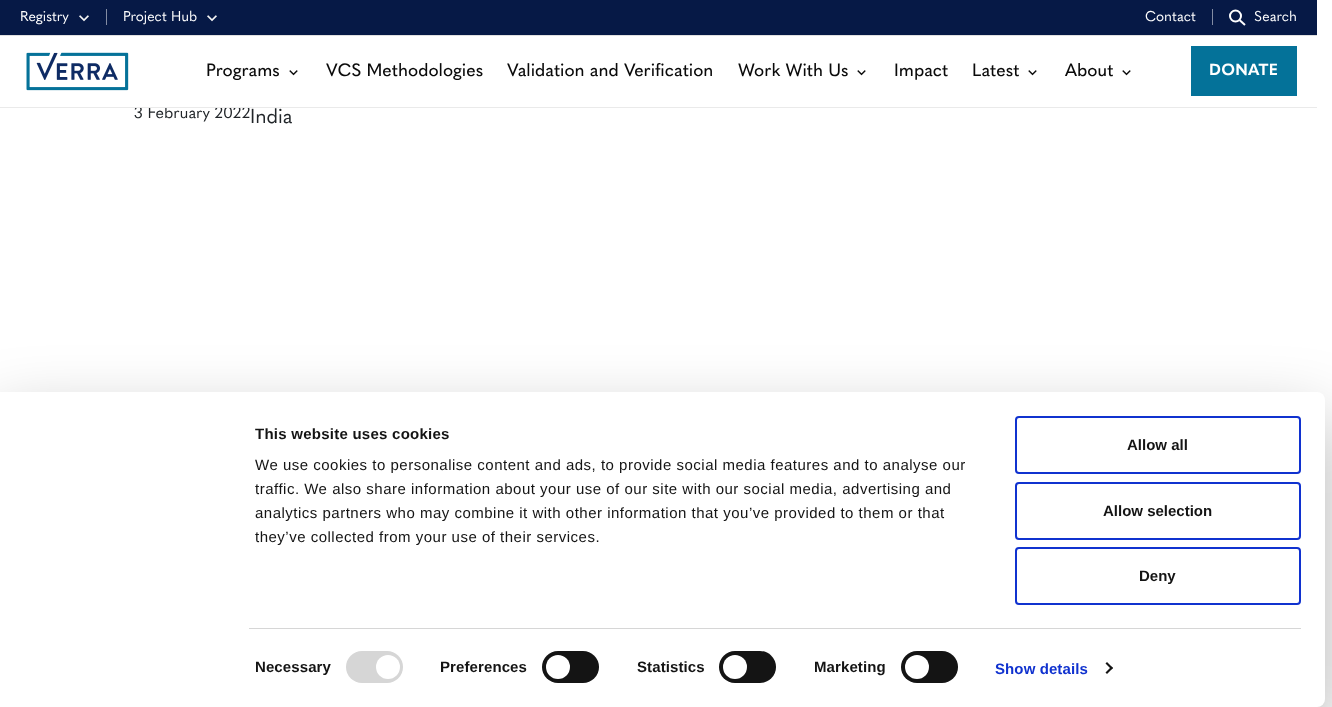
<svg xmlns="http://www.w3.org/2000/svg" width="1332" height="707">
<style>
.a{font:14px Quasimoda;fill:#fff}
.b{font:500 17.6px Quasimoda;fill:#0a0a0a}
.c{font:bold 16px Quasimoda;letter-spacing:0.25px;fill:#fff}
.d{font:16px Quasimoda;fill:#212529}
.e{font:20px Quasimoda;fill:#212529}
.f{font:bold 15px Liberation Sans;letter-spacing:0.25px;fill:#141414}
.g{font:15px Liberation Sans;letter-spacing:0.5px;fill:#141414}
.h{font:bold 15px Liberation Sans;letter-spacing:0.1px;fill:#141414}
.i{font:bold 15px Liberation Sans;letter-spacing:0.1px;fill:#1032cf}
.j{font:bold 15px Liberation Sans;fill:#141414}
</style>
<defs>
<clipPath id="clip1"><path d="M255 422h731v177H255z"/></clipPath>
</defs>
<rect width="100%" height="100%" fill="#fff"/>
<path fill="#061946" d="M0 0h1317v35H0z"/>
<path fill="#e0e0e0" d="M0 35h1317v1H0z"/>
<image href="1.png" x="79" y="15" width="10" height="7"/>
<path fill="#838ca3" d="M106 9h1v16H106z"/>
<image href="1.png" x="207" y="15" width="10" height="7"/>
<path fill="#838ca3" d="M1212 9h1v16H1212z"/>
<circle fill="none" stroke="#fff" stroke-width="2" cx="1235.5" cy="16" r="5.5"/>
<path fill="none" stroke="#fff" stroke-width="2" d="M1239.5 20l5.5 5"/>
<image href="2.png" x="26" y="52" width="103" height="39"/>
<image href="3.png" x="289" y="70" width="9" height="6"/>
<image href="3.png" x="857" y="70" width="9" height="6"/>
<image href="3.png" x="1028" y="70" width="9" height="6"/>
<image href="3.png" x="1122" y="70" width="9" height="6"/>
<path fill="#047299" d="M1191 46h106v50H1191z"/>
<rect fill="#0000004d" filter="blur(35px)" x="-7" y="422" width="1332" height="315" rx="8"/>
<rect fill="#fff" x="-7" y="392" width="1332" height="315" rx="8"/>
<path fill="#d6d6d6" d="M249 628h1052v1H249z"/>
<rect fill="#d6d6d6" x="346" y="651" width="57" height="32" rx="16"/>
<circle fill="#fff" cx="388" cy="667" r="12"/>
<rect fill="#141414" x="542" y="651" width="57" height="32" rx="16"/>
<circle fill="#fff" cx="558" cy="667" r="12"/>
<rect fill="#141414" x="719" y="651" width="57" height="32" rx="16"/>
<circle fill="#fff" cx="735" cy="667" r="12"/>
<rect fill="#141414" x="901" y="651" width="57" height="32" rx="16"/>
<circle fill="#fff" cx="917" cy="667" r="12"/>
<path fill="#141414" d="M1107 662l6 6l-1.5 1.5l-6-6z"/>
<path fill="#141414" d="M1111.5 666.5l1.5 1.5l-6 6l-1.5-1.5z"/>
<rect fill="none" stroke="#1032cf" stroke-width="2" x="1016" y="417" width="284" height="56" rx="3"/>
<rect fill="none" stroke="#1032cf" stroke-width="2" x="1016" y="483" width="284" height="56" rx="3"/>
<rect fill="none" stroke="#1032cf" stroke-width="2" x="1016" y="548" width="284" height="56" rx="3"/>
<text class="a" x="20" y="21">Registry</text>
<text class="a" x="123" y="21">Project Hub</text>
<text class="a" x="1145" y="21">Contact</text>
<text class="a" x="1254" y="21">Search</text>
<text class="b" x="206" y="76">Programs</text>
<text class="b" x="326" y="76">VCS Methodologies</text>
<text class="b" x="507" y="76">Validation and Verification</text>
<text class="b" x="738" y="76">Work With Us</text>
<text class="b" x="894" y="76">Impact</text>
<text class="b" x="972" y="76">Latest</text>
<text class="b" x="1065" y="76">About</text>
<text class="c" x="1209" y="75">DONATE</text>
<text class="d" x="134" y="118">3 February 2022</text>
<path fill="#eaeaea" d="M0 107h1317v1H0z"/>
<path fill="#fff" d="M136 106h112v1H136z"/>
<text class="e" x="250" y="123">India</text>
<g clip-path="url(#clip1)">
<text class="f" x="255" y="439">This website uses cookies</text>
</g>
<text class="g" x="255" y="470">We use cookies to personalise content and ads, to provide social media features and to analyse our</text>
<text class="g" x="255" y="494">traffic. We also share information about your use of our site with our social media, advertising and</text>
<text class="g" x="255" y="518">analytics partners who may combine it with other information that you’ve provided to them or that</text>
<text class="g" x="255" y="542">they’ve collected from your use of their services.</text>
<text class="h" x="255" y="672">Necessary</text>
<text class="h" x="440" y="672">Preferences</text>
<text class="h" x="637" y="672">Statistics</text>
<text class="h" x="814" y="672">Marketing</text>
<text class="i" x="995" y="674">Show details</text>
<text class="j" x="1127" y="450">Allow all</text>
<text class="j" x="1103" y="516">Allow selection</text>
<text class="j" x="1139" y="581">Deny</text>
</svg>
